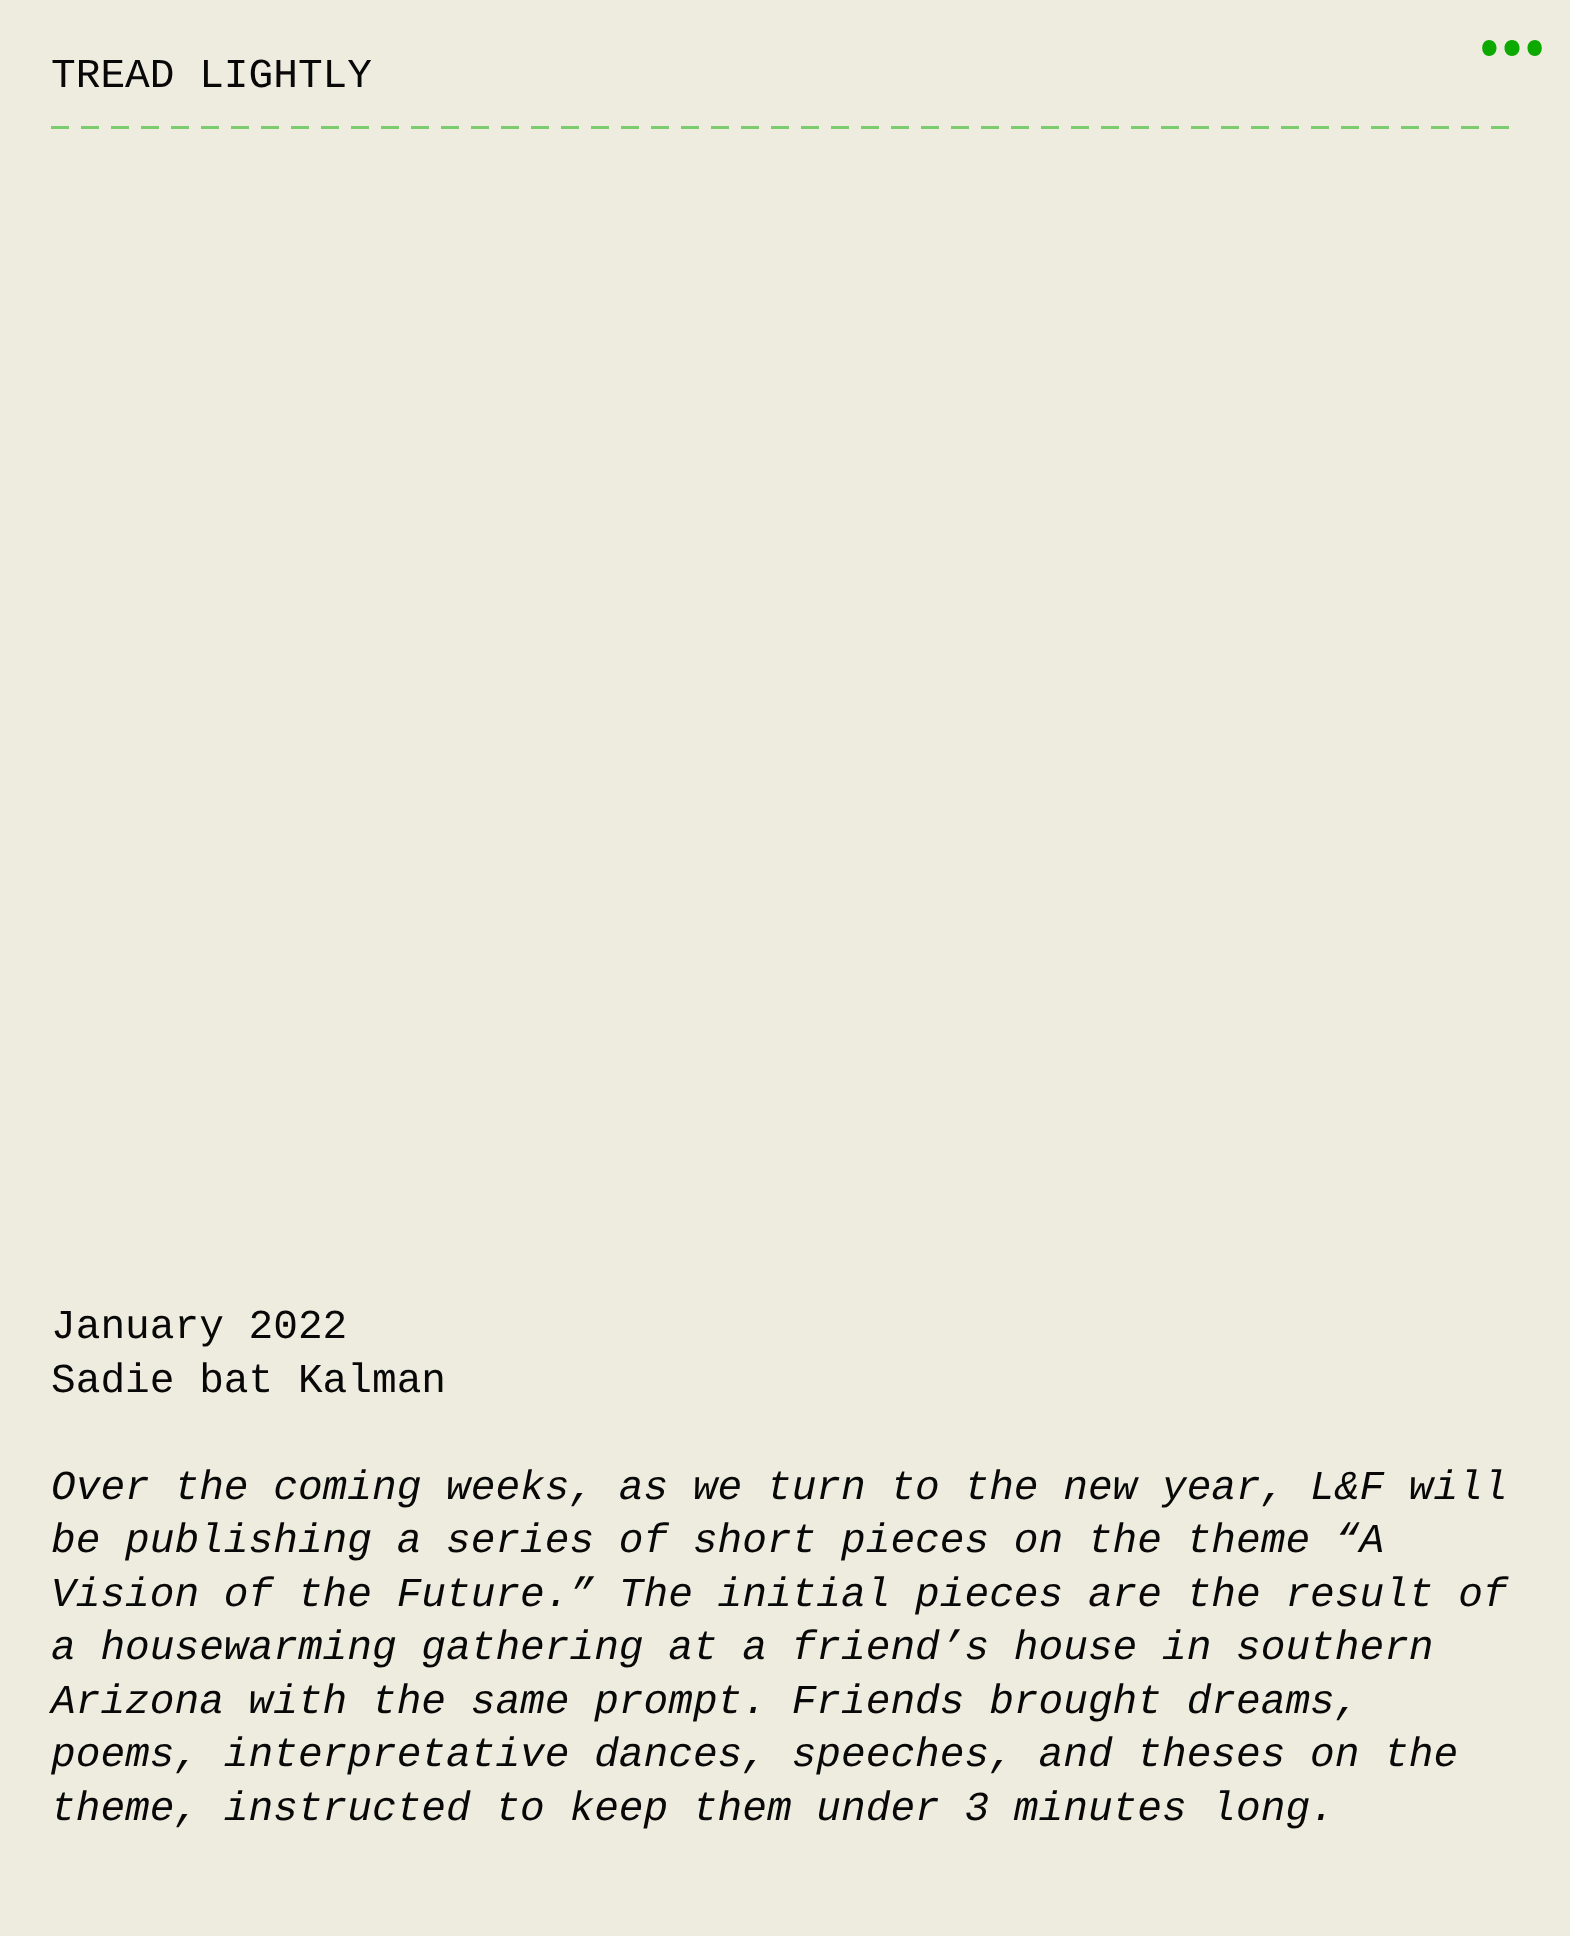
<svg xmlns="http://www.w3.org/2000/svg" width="1570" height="1936">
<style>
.a{font:41.15px Liberation Mono;fill:#080808}
.b{font:italic 41.15px Liberation Mono;fill:#080808}
</style>
<rect width="100%" height="100%" fill="#edecdf"/>
<path fill="#0ca900" d="M1489 56c10 0 10-16 0-16c-9 0-9 16 0 16zm23 0c10 0 10-16 0-16c-10 0-10 16 0 16zm23 0c9 0 9-16 0-16c-10 0-10 16 0 16z"/>
<image href="1.png" x="51" y="126" width="1458" height="3"/>
<text class="a" x="51" y="87">TREAD LIGHTLY</text>
<text class="a" x="51" y="1338">January 2022</text>
<text class="a" x="51" y="1392">Sadie bat Kalman</text>
<text class="b" x="51" y="1499">Over the coming weeks, as we turn to the new year, L&amp;F will</text>
<text class="b" x="51" y="1552">be publishing a series of short pieces on the theme “A</text>
<text class="b" x="51" y="1606">Vision of the Future.” The initial pieces are the result of</text>
<text class="b" x="51" y="1659">a housewarming gathering at a friend’s house in southern</text>
<text class="b" x="51" y="1713">Arizona with the same prompt. Friends brought dreams,</text>
<text class="b" x="51" y="1766">poems, interpretative dances, speeches, and theses on the</text>
<text class="b" x="51" y="1820">theme, instructed to keep them under 3 minutes long.</text>
</svg>
